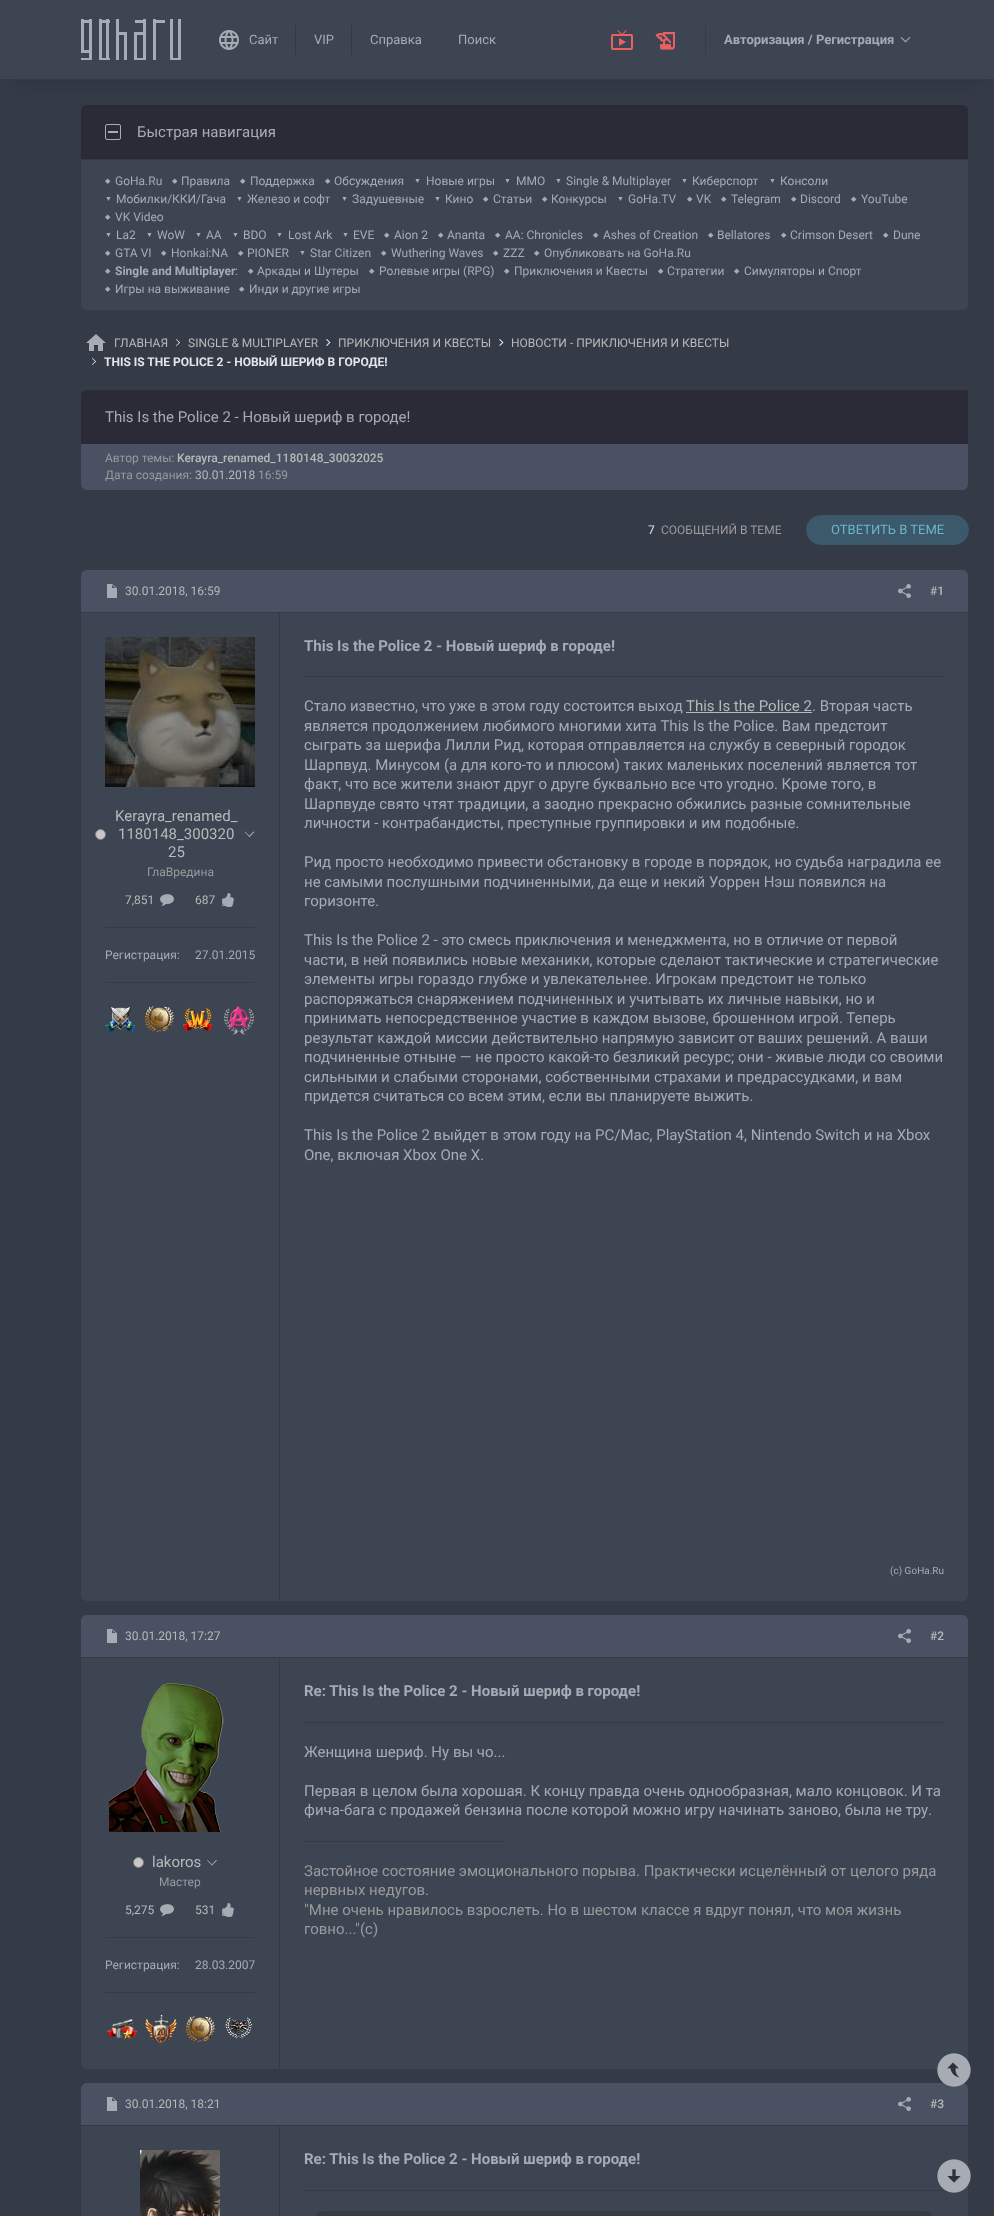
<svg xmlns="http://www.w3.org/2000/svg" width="994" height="2216">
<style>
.a{font:13px Roboto;fill:#a7abb4}
.b{font:bold 13px Roboto;fill:#a7abb4}
.c{font:15px Roboto;fill:#a7abb4}
.d{font:7px DejaVu Sans;fill:#a7abb4}
.e{font:12px Roboto;fill:#a7abb4}
.f{font:7px Liberation Sans;fill:#a7abb4}
.g{font:bold 12px Roboto;fill:#a7abb4}
.h{font:12px Roboto;fill:#b9b9b9}
.i{font:bold 12px Roboto;fill:#e5e6ea}
.j{font:12px Roboto;fill:#9b9a9d}
.k{font:500 12px Roboto;fill:#b9b9b9}
.l{font:12px Roboto;fill:#e5e6ea}
.m{font:13px Roboto;fill:#6bb6c7}
.n{font:15px Roboto;fill:#b9b9b9}
.o{font:bold 15px Roboto;fill:#a7abb4}
.p{font:10px Roboto;fill:#a7abb4}
.q{font:15px Roboto;fill:#9b9a9d}
</style>
<rect width="100%" height="100%" fill="#343a46"/>
<path fill="#00000026" filter="blur(7.5px)" d="M15 30h964v50H15z"/>
<path fill="#3d4552" d="M0 0h994v79H0z"/>
<path fill="#333b46" d="M12 79h970v1H12z"/>
<image href="1.png" x="81" y="19" width="100" height="41"/>
<image href="2.png" x="219" y="30" width="20" height="20"/>
<path fill="#333b46" d="M295 25h1v30H295z"/>
<path fill="#333b46" d="M351 25h1v30H351z"/>
<image href="3.png" x="611" y="30" width="22" height="20"/>
<image href="4.png" x="655" y="32" width="20" height="18"/>
<path fill="#333b46" d="M705 25h1v30H705z"/>
<path fill="#a7abb4" d="M909.5 37l1 .5l-5 5l-.5-1z"/>
<path fill="#a7abb4" d="M901.5 37l4.5 4.5l-.5 1l-5-5z"/>
<path fill="#2b2b37" d="M87 105h875c3.5 0 6 2.5 6 6v48h-887v-48c0-3.5 2.5-6 6-6z"/>
<rect fill="none" stroke="#a7abb4" x="105.5" y="124.5" width="15" height="15" rx="1.5"/>
<path fill="#a7abb4" d="M108 131h10v2H108z"/>
<path fill="#3d4552" d="M81 160h887v144c0 3.5-2.5 6-6 6h-875c-3.5 0-6-2.5-6-6z"/>
<image href="5.png" x="86" y="334" width="20" height="17"/>
<path fill="#e5e6ea" d="M176.5 339l3.5 3.5l-.5 .5l-3.5-3.5z"/>
<path fill="#e5e6ea" d="M179.5 342l.5 .5l-3.5 3.5l-.5-.5z"/>
<path fill="#e5e6ea" d="M327 339l3.5 3.5l-1 .5l-3.5-3.5z"/>
<path fill="#e5e6ea" d="M329.5 342l1 .5l-3.5 3.5l-1-.5z"/>
<path fill="#e5e6ea" d="M500 339l3.5 3.5l-1 .5l-3.5-3.5z"/>
<path fill="#e5e6ea" d="M502.5 342l1 .5l-3.5 3.5l-1-.5z"/>
<path fill="#e5e6ea" d="M92.5 358l3.5 3.5l-.5 .5l-3.5-3.5z"/>
<path fill="#e5e6ea" d="M95.5 361l.5 .5l-3.5 3.5l-.5-.5z"/>
<path fill="#2b2b37" d="M87 390h881v54h-887v-48c0-3.5 2.5-6 6-6z"/>
<path fill="#495162" d="M81 444h887v40c0 3.5-2.5 6-6 6h-875c-3.5 0-6-2.5-6-6z"/>
<rect fill="#3c586b" stroke="#3c586b" x="806.5" y="515.5" width="162" height="29" rx="14.5"/>
<path fill="#495162" d="M87 570h875c3.5 0 6 2.5 6 6v36h-887v-36c0-3.5 2.5-6 6-6z"/>
<image href="6.png" x="107" y="584" width="10" height="14"/>
<image href="7.png" x="898" y="584" width="13" height="14"/>
<path fill="#3d4552" d="M81 613h199v988h-193c-3.5 0-6-2.5-6-6z"/>
<path fill="#333b46" d="M279 613h1v988H279z"/>
<image href="8.png" x="105" y="637" width="150" height="150"/>
<circle fill="#c8c8c8" stroke="#7e7e7e" cx="100.5" cy="834.5" r="5"/>
<path fill="#a7abb4" d="M253.5 831.5l1 .5l-5 5l-1-.5z"/>
<path fill="#a7abb4" d="M245 831.5l5 5l-.5 .5l-5-5z"/>
<image href="9.png" x="160" y="894" width="14" height="12"/>
<image href="10.png" x="222" y="893" width="12" height="14"/>
<path fill="#333b46" d="M105 927h150v1H105z"/>
<path fill="#333b46" d="M105 982h150v1H105z"/>
<image href="11.png" x="105" y="1007" width="30" height="25"/>
<image href="12.png" x="144" y="1006" width="30" height="26"/>
<image href="13.png" x="183" y="1007" width="30" height="24"/>
<image href="14.png" x="223" y="1006" width="32" height="29"/>
<path fill="#3d4552" d="M280 613h688v982c0 3.5-2.5 6-6 6h-682z"/>
<path fill="#333b46" d="M304 676h640v1H304z"/>
<path fill="#b9b9b9" d="M686 712h126v1H686z"/>
<path fill="#495162" d="M87 1615h875c3.5 0 6 2.5 6 6v36h-887v-36c0-3.5 2.5-6 6-6z"/>
<image href="6.png" x="107" y="1629" width="10" height="14"/>
<image href="7.png" x="898" y="1629" width="13" height="14"/>
<path fill="#3d4552" d="M81 1658h199v411h-193c-3.5 0-6-2.5-6-6z"/>
<path fill="#333b46" d="M279 1658h1v411H279z"/>
<image href="15.png" x="109" y="1683" width="115" height="149"/>
<circle fill="#c8c8c8" stroke="#7e7e7e" cx="138.5" cy="1862.5" r="5"/>
<path fill="#a7abb4" d="M216 1860l1 .5l-5 5l-.5-.5z"/>
<path fill="#a7abb4" d="M207.5 1860l5 5l-.5 .5l-5-5z"/>
<image href="9.png" x="160" y="1904" width="14" height="12"/>
<image href="10.png" x="222" y="1903" width="12" height="14"/>
<path fill="#333b46" d="M105 1937h150v1H105z"/>
<path fill="#333b46" d="M105 1992h150v1H105z"/>
<image href="16.png" x="107" y="2018" width="30" height="22"/>
<image href="17.png" x="145" y="2015" width="32" height="29"/>
<image href="12.png" x="185" y="2016" width="30" height="26"/>
<image href="18.png" x="225" y="2017" width="28" height="22"/>
<path fill="#3d4552" d="M280 1658h688v411H280z"/>
<path fill="#333b46" d="M304 1722h640v1H304z"/>
<path fill="#333b46" d="M304 1841h200v1H304z"/>
<path fill="#495162" d="M87 2083h875c3.5 0 6 2.5 6 6v36h-887v-36c0-3.5 2.5-6 6-6z"/>
<image href="6.png" x="107" y="2097" width="10" height="14"/>
<image href="7.png" x="898" y="2097" width="13" height="14"/>
<path fill="#3d4552" d="M81 2126h198v90H81z"/>
<image href="19.png" x="140" y="2150" width="80" height="66"/>
<path fill="#3d4552" d="M280 2126h688v90H280z"/>
<path fill="#333b46" d="M304 2190h640v1H304z"/>
<rect fill="#333b46" x="316" y="2211" width="616" height="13" rx="8"/>
<image href="20.png" x="937" y="2053" width="34" height="34"/>
<image href="21.png" x="937" y="2159" width="34" height="34"/>
<text class="a" x="249" y="44">Сайт</text>
<text class="a" x="314" y="44">VIP</text>
<text class="a" x="370" y="44">Справка</text>
<text class="a" x="458" y="44">Поиск</text>
<text class="b" x="724" y="44">Авторизация / Регистрация</text>
<text class="c" x="137" y="137">Быстрая навигация</text>
<text class="d" x="105" y="183">◆</text>
<text class="e" x="115" y="185">GoHa.Ru</text>
<text class="d" x="172" y="183">◆</text>
<text class="e" x="181" y="185">Правила</text>
<text class="d" x="240" y="183">◆</text>
<text class="e" x="250" y="185">Поддержка</text>
<text class="d" x="325" y="183">◆</text>
<text class="e" x="334" y="185">Обсуждения</text>
<text class="f" x="414" y="183">▼</text>
<text class="e" x="426" y="185">Новые игры</text>
<text class="f" x="504" y="183">▼</text>
<text class="e" x="516" y="185">MMO</text>
<text class="f" x="555" y="183">▼</text>
<text class="e" x="566" y="185">Single &amp; Multiplayer</text>
<text class="f" x="681" y="183">▼</text>
<text class="e" x="692" y="185">Киберспорт</text>
<text class="f" x="769" y="183">▼</text>
<text class="e" x="780" y="185">Консоли</text>
<text class="f" x="105" y="201">▼</text>
<text class="e" x="116" y="203">Мобилки/ККИ/Гача</text>
<text class="f" x="236" y="201">▼</text>
<text class="e" x="247" y="203">Железо и софт</text>
<text class="f" x="341" y="201">▼</text>
<text class="e" x="352" y="203">Задушевные</text>
<text class="f" x="434" y="201">▼</text>
<text class="e" x="445" y="203">Кино</text>
<text class="d" x="483" y="201">◆</text>
<text class="e" x="493" y="203">Статьи</text>
<text class="d" x="542" y="201">◆</text>
<text class="e" x="551" y="203">Конкурсы</text>
<text class="f" x="617" y="201">▼</text>
<text class="e" x="628" y="203">GoHa.TV</text>
<text class="d" x="687" y="201">◆</text>
<text class="e" x="696" y="203">VK</text>
<text class="d" x="721" y="201">◆</text>
<text class="e" x="731" y="203">Telegram</text>
<text class="d" x="791" y="201">◆</text>
<text class="e" x="800" y="203">Discord</text>
<text class="d" x="851" y="201">◆</text>
<text class="e" x="861" y="203">YouTube</text>
<text class="d" x="105" y="219">◆</text>
<text class="e" x="115" y="221">VK Video</text>
<text class="f" x="105" y="237">▼</text>
<text class="e" x="116" y="239">La2</text>
<text class="f" x="146" y="237">▼</text>
<text class="e" x="157" y="239">WoW</text>
<text class="f" x="195" y="237">▼</text>
<text class="e" x="206" y="239">AA</text>
<text class="f" x="232" y="237">▼</text>
<text class="e" x="243" y="239">BDO</text>
<text class="f" x="276" y="237">▼</text>
<text class="e" x="288" y="239">Lost Ark</text>
<text class="f" x="342" y="237">▼</text>
<text class="e" x="353" y="239">EVE</text>
<text class="d" x="384" y="237">◆</text>
<text class="e" x="394" y="239">Aion 2</text>
<text class="d" x="438" y="237">◆</text>
<text class="e" x="447" y="239">Ananta</text>
<text class="d" x="495" y="237">◆</text>
<text class="e" x="505" y="239">AA: Chronicles</text>
<text class="d" x="593" y="237">◆</text>
<text class="e" x="603" y="239">Ashes of Creation</text>
<text class="d" x="708" y="237">◆</text>
<text class="e" x="717" y="239">Bellatores</text>
<text class="d" x="781" y="237">◆</text>
<text class="e" x="790" y="239">Crimson Desert</text>
<text class="d" x="883" y="237">◆</text>
<text class="e" x="893" y="239">Dune</text>
<text class="d" x="105" y="255">◆</text>
<text class="e" x="115" y="257">GTA VI</text>
<text class="d" x="161" y="255">◆</text>
<text class="e" x="171" y="257">Honkai:NA</text>
<text class="d" x="238" y="255">◆</text>
<text class="e" x="247" y="257">PIONER</text>
<text class="f" x="299" y="255">▼</text>
<text class="e" x="310" y="257">Star Citizen</text>
<text class="d" x="381" y="255">◆</text>
<text class="e" x="391" y="257">Wuthering Waves</text>
<text class="d" x="493" y="255">◆</text>
<text class="e" x="503" y="257">ZZZ</text>
<text class="d" x="534" y="255">◆</text>
<text class="e" x="544" y="257">Опубликовать на GoHa.Ru</text>
<text class="d" x="105" y="273">◆</text>
<text class="g" x="115" y="275">Single and Multiplayer</text>
<text class="e" x="235" y="275">:</text>
<text class="d" x="248" y="273">◆</text>
<text class="e" x="257" y="275">Аркады и Шутеры</text>
<text class="d" x="369" y="273">◆</text>
<text class="e" x="379" y="275">Ролевые игры (RPG)</text>
<text class="d" x="504" y="273">◆</text>
<text class="e" x="514" y="275">Приключения и Квесты</text>
<text class="d" x="658" y="273">◆</text>
<text class="e" x="667" y="275">Стратегии</text>
<text class="d" x="734" y="273">◆</text>
<text class="e" x="744" y="275">Симуляторы и Спорт</text>
<text class="d" x="105" y="291">◆</text>
<text class="e" x="115" y="293">Игры на выживание</text>
<text class="d" x="239" y="291">◆</text>
<text class="e" x="249" y="293">Инди и другие игры</text>
<text class="h" x="114" y="347">ГЛАВНАЯ</text>
<text class="h" x="188" y="347">SINGLE &amp; MULTIPLAYER</text>
<text class="h" x="338" y="347">ПРИКЛЮЧЕНИЯ И КВЕСТЫ</text>
<text class="h" x="511" y="347">НОВОСТИ - ПРИКЛЮЧЕНИЯ И КВЕСТЫ</text>
<text class="i" x="104" y="366">THIS IS THE POLICE 2 - НОВЫЙ ШЕРИФ В ГОРОДЕ!</text>
<text class="c" x="105" y="422">This Is the Police 2 - Новый шериф в городе!</text>
<text class="j" x="105" y="462">Автор темы:</text>
<text class="k" x="177" y="462">Kerayra_renamed_1180148_30032025</text>
<text class="j" x="105" y="479">Дата создания:</text>
<text class="h" x="195" y="479">30.01.2018</text>
<text class="j" x="258" y="479">16:59</text>
<text class="l" x="648" y="534">7</text>
<text class="j" x="661" y="534">СООБЩЕНИЙ В ТЕМЕ</text>
<text class="m" x="831" y="534">ОТВЕТИТЬ В ТЕМЕ</text>
<text class="h" x="125" y="595">30.01.2018, 16:59</text>
<text class="k" x="930" y="595">#1</text>
<text class="n" x="115" y="821">Kerayra_renamed_</text>
<text class="n" x="118" y="839">1180148_300320</text>
<text class="n" x="168" y="857">25</text>
<text class="j" x="147" y="876">ГлаВредина</text>
<text class="h" x="125" y="904">7,851</text>
<text class="h" x="195" y="904">687</text>
<text class="e" x="105" y="959">Регистрация:</text>
<text class="e" x="195" y="959">27.01.2015</text>
<text class="o" x="304" y="651">This Is the Police 2 - Новый шериф в городе!</text>
<text class="c" x="304" y="711">Стало известно, что уже в этом году состоится выход</text>
<text class="n" x="686" y="711">This Is the Police 2</text>
<text class="c" x="812" y="711">. Вторая часть</text>
<text class="c" x="304" y="731">является продолжением любимого многими хита This Is the Police. Вам предстоит</text>
<text class="c" x="304" y="750">сыграть за шерифа Лилли Рид, которая отправляется на службу в северный городок</text>
<text class="c" x="304" y="770">Шарпвуд. Минусом (а для кого-то и плюсом) таких маленьких поселений является тот</text>
<text class="c" x="304" y="789">факт, что все жители знают друг о друге буквально все что угодно. Кроме того, в</text>
<text class="c" x="304" y="809">Шарпвуде свято чтят традиции, а заодно прекрасно обжились разные сомнительные</text>
<text class="c" x="304" y="828">личности - контрабандисты, преступные группировки и им подобные.</text>
<text class="c" x="304" y="867">Рид просто необходимо привести обстановку в городе в порядок, но судьба наградила ее</text>
<text class="c" x="304" y="887">не самыми послушными подчиненными, да еще и некий Уоррен Нэш появился на</text>
<text class="c" x="304" y="906">горизонте.</text>
<text class="c" x="304" y="945">This Is the Police 2 - это смесь приключения и менеджмента, но в отличие от первой</text>
<text class="c" x="304" y="965">части, в ней появились новые механики, которые сделают тактические и стратегические</text>
<text class="c" x="304" y="984">элементы игры гораздо глубже и увлекательнее. Игрокам предстоит не только</text>
<text class="c" x="304" y="1004">распоряжаться снаряжением подчиненных и учитывать их личные навыки, но и</text>
<text class="c" x="304" y="1023">принимать непосредственное участие в каждом вызове, брошенном игрой. Теперь</text>
<text class="c" x="304" y="1043">результат каждой миссии действительно напрямую зависит от ваших решений. А ваши</text>
<text class="c" x="304" y="1062">подчиненные отныне — не просто какой-то безликий ресурс; они - живые люди со своими</text>
<text class="c" x="304" y="1082">сильными и слабыми сторонами, собственными страхами и предрассудками, и вам</text>
<text class="c" x="304" y="1101">придется считаться со всем этим, если вы планируете выжить.</text>
<text class="c" x="304" y="1140">This Is the Police 2 выйдет в этом году на PC/Mac, PlayStation 4, Nintendo Switch и на Xbox</text>
<text class="c" x="304" y="1160">One, включая Xbox One X.</text>
<text class="p" x="890" y="1574">(c) GoHa.Ru</text>
<text class="h" x="125" y="1640">30.01.2018, 17:27</text>
<text class="k" x="930" y="1640">#2</text>
<text class="n" x="152" y="1867">lakoros</text>
<text class="j" x="159" y="1886">Мастер</text>
<text class="h" x="125" y="1914">5,275</text>
<text class="h" x="195" y="1914">531</text>
<text class="e" x="105" y="1969">Регистрация:</text>
<text class="e" x="195" y="1969">28.03.2007</text>
<text class="o" x="304" y="1696">Re: This Is the Police 2 - Новый шериф в городе!</text>
<text class="c" x="304" y="1757">Женщина шериф. Ну вы чо...</text>
<text class="c" x="304" y="1796">Первая в целом была хорошая. К концу правда очень однообразная, мало концовок. И та</text>
<text class="c" x="304" y="1815">фича-бага с продажей бензина после которой можно игру начинать заново, была не тру.</text>
<text class="q" x="304" y="1876">Застойное состояние эмоционального порыва. Практически исцелённый от целого ряда</text>
<text class="q" x="304" y="1895">нервных недугов.</text>
<text class="q" x="304" y="1915">"Мне очень нравилось взрослеть. Но в шестом классе я вдруг понял, что моя жизнь</text>
<text class="q" x="304" y="1934">говно..."(с)</text>
<text class="h" x="125" y="2108">30.01.2018, 18:21</text>
<text class="k" x="930" y="2108">#3</text>
<text class="o" x="304" y="2164">Re: This Is the Police 2 - Новый шериф в городе!</text>
</svg>
